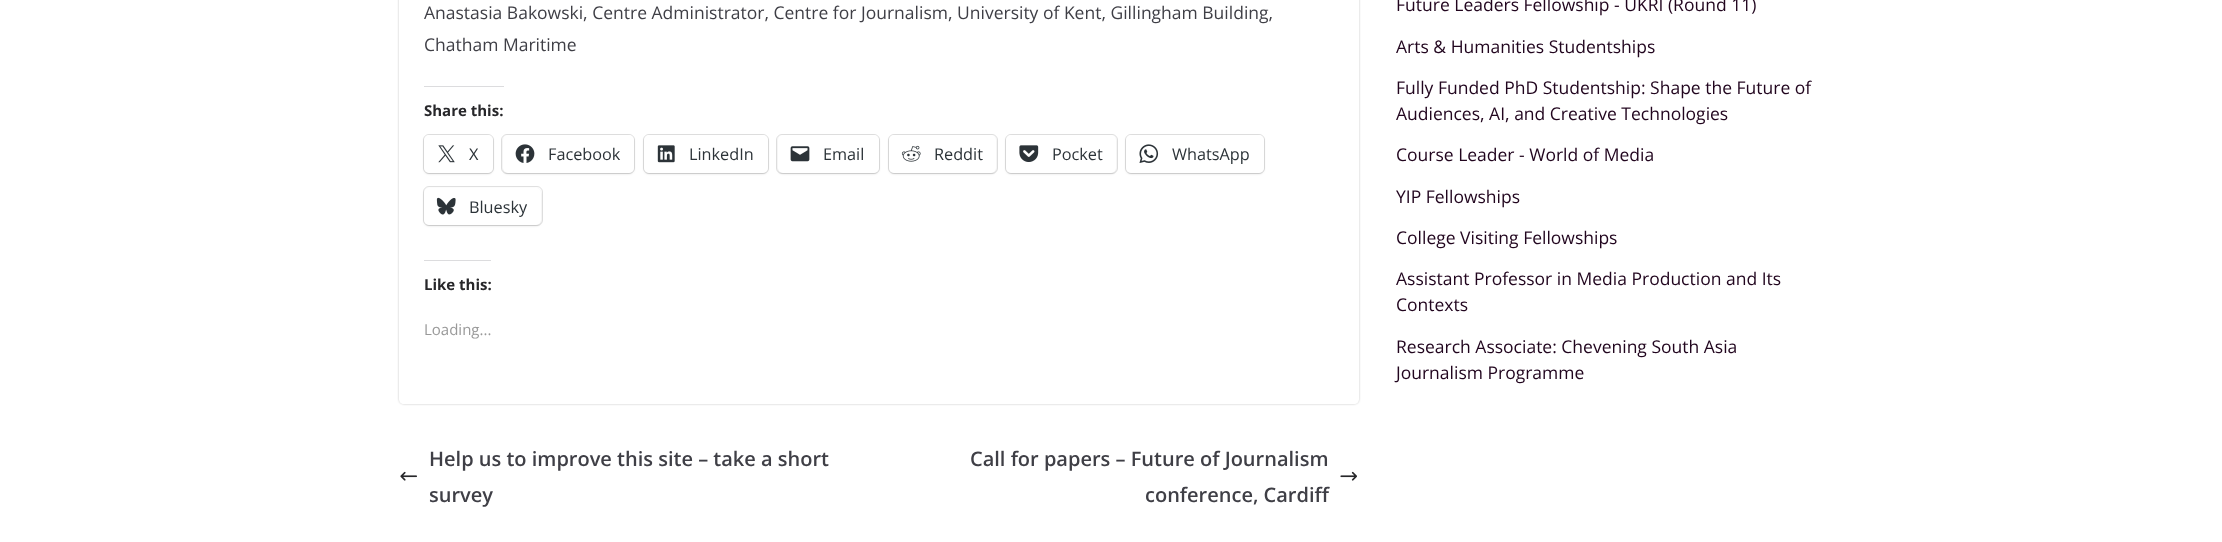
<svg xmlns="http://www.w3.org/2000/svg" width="2222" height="542">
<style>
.a{font:17.5px Open Sans;fill:#3f3f46}
.b{font:bold 15px Open Sans;fill:#27272a}
.c{font:16.25px Open Sans;fill:#2c3338}
.d{font:15px Open Sans;fill:#999}
.e{font:600 20px Open Sans;fill:#3f3f46}
.f{font:17.5px Open Sans;fill:#21051e}
</style>
<defs>
<clipPath id="clip1"><path d="M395 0h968v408h-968zm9-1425h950c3 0 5 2 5 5v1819c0 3-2 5-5 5h-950c-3 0-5-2-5-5v-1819c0-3 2-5 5-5z" clip-rule="evenodd"/></clipPath>
</defs>
<rect width="100%" height="100%" fill="#fff"/>
<g clip-path="url(#clip1)">
<rect fill="#0000003d" filter="blur(1px)" x="399" y="-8" width="960" height="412" rx="5"/>
</g>
<path fill="#dcdcde" d="M424 86h80v1H424z"/>
<rect fill="none" stroke="#e0e0e0" x="423.5" y="134.5" width="70" height="39" rx="5.5"/>
<rect fill="#0000001f" filter="blur(1px)" x="424" y="136" width="69" height="38" rx="5"/>
<rect fill="#fff" x="424" y="135" width="69" height="38" rx="5"/>
<image href="1.png" x="438" y="145" width="17" height="18"/>
<rect fill="none" stroke="#e0e0e0" x="501.5" y="134.5" width="133" height="39" rx="5.5"/>
<rect fill="#0000001f" filter="blur(1px)" x="503" y="136" width="131" height="38" rx="5"/>
<rect fill="#fff" x="503" y="135" width="131" height="38" rx="5"/>
<image href="2.png" x="515" y="144" width="20" height="19"/>
<rect fill="none" stroke="#e0e0e0" x="643.5" y="134.5" width="125" height="39" rx="5.5"/>
<rect fill="#0000001f" filter="blur(1px)" x="644" y="136" width="124" height="38" rx="5"/>
<rect fill="#fff" x="644" y="135" width="124" height="38" rx="5"/>
<image href="3.png" x="657" y="145" width="18" height="18"/>
<rect fill="none" stroke="#e0e0e0" x="776.5" y="134.5" width="103" height="39" rx="5.5"/>
<rect fill="#0000001f" filter="blur(1px)" x="778" y="136" width="101" height="38" rx="5"/>
<rect fill="#fff" x="778" y="135" width="101" height="38" rx="5"/>
<image href="4.png" x="790" y="146" width="20" height="16"/>
<rect fill="none" stroke="#e0e0e0" x="888.5" y="134.5" width="109" height="39" rx="5.5"/>
<rect fill="#0000001f" filter="blur(1px)" x="889" y="136" width="107" height="38" rx="5"/>
<rect fill="#fff" x="889" y="135" width="107" height="38" rx="5"/>
<image href="5.png" x="901" y="145" width="20" height="17"/>
<rect fill="none" stroke="#e0e0e0" x="1005.5" y="134.5" width="112" height="39" rx="5.5"/>
<rect fill="#0000001f" filter="blur(1px)" x="1006" y="136" width="110" height="38" rx="5"/>
<rect fill="#fff" x="1006" y="135" width="110" height="38" rx="5"/>
<image href="6.png" x="1019" y="145" width="20" height="17"/>
<rect fill="none" stroke="#e0e0e0" x="1125.5" y="134.5" width="139" height="39" rx="5.5"/>
<rect fill="#0000001f" filter="blur(1px)" x="1126" y="136" width="138" height="38" rx="5"/>
<rect fill="#fff" x="1126" y="135" width="138" height="38" rx="5"/>
<image href="7.png" x="1139" y="144" width="20" height="19"/>
<rect fill="none" stroke="#e0e0e0" x="423.5" y="186.5" width="119" height="39" rx="5.5"/>
<rect fill="#0000001f" filter="blur(1px)" x="424" y="189" width="117" height="37" rx="5"/>
<rect fill="#fff" x="424" y="188" width="117" height="37" rx="5"/>
<image href="8.png" x="436" y="197" width="20" height="18"/>
<path fill="#dcdcde" d="M424 260h67v1H424z"/>
<image href="9.png" x="400" y="471" width="17" height="10"/>
<image href="10.png" x="1340" y="471" width="17" height="10"/>
<text class="a" x="424" y="19">Anastasia Bakowski, Centre Administrator, Centre for Journalism, University of Kent, Gillingham Building,</text>
<text class="a" x="424" y="51">Chatham Maritime</text>
<text class="b" x="424" y="116">Share this:</text>
<text class="c" x="469" y="160">X</text>
<text class="c" x="548" y="160">Facebook</text>
<text class="c" x="689" y="160">LinkedIn</text>
<text class="c" x="823" y="160">Email</text>
<text class="c" x="934" y="160">Reddit</text>
<text class="c" x="1052" y="160">Pocket</text>
<text class="c" x="1172" y="160">WhatsApp</text>
<text class="c" x="469" y="213">Bluesky</text>
<text class="b" x="424" y="290">Like this:</text>
<text class="d" x="424" y="335">Loading...</text>
<text class="e" x="429" y="466">Help us to improve this site – take a short</text>
<text class="e" x="429" y="502">survey</text>
<text class="e" x="970" y="466">Call for papers – Future of Journalism</text>
<text class="e" x="1145" y="502">conference, Cardiff</text>
<text class="f" x="1396" y="11">Future Leaders Fellowship - UKRI (Round 11)</text>
<text class="f" x="1396" y="53">Arts &amp; Humanities Studentships</text>
<text class="f" x="1396" y="94">Fully Funded PhD Studentship: Shape the Future of</text>
<text class="f" x="1396" y="120">Audiences, AI, and Creative Technologies</text>
<text class="f" x="1396" y="161">Course Leader - World of Media</text>
<text class="f" x="1396" y="203">YIP Fellowships</text>
<text class="f" x="1396" y="244">College Visiting Fellowships</text>
<text class="f" x="1396" y="285">Assistant Professor in Media Production and Its</text>
<text class="f" x="1396" y="311">Contexts</text>
<text class="f" x="1396" y="353">Research Associate: Chevening South Asia</text>
<text class="f" x="1396" y="379">Journalism Programme</text>
</svg>
